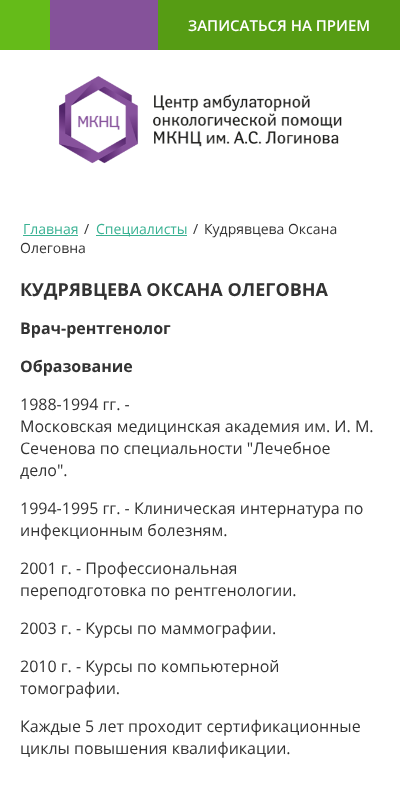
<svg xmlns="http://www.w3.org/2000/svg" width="400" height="787">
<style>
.a{font:600 15px Open Sans;fill:#fff}
.b{font:14px Open Sans;fill:#3ab293}
.c{font:14px Open Sans;fill:#333}
.d{font:bold 18px Open Sans;fill:#333}
.e{font:bold 16px Open Sans;fill:#333}
.f{font:16px Open Sans;fill:#333}
</style>
<rect width="100%" height="100%" fill="#fff"/>
<path fill="#65bb19" d="M0 0h50v50H0z"/>
<path fill="#85529a" d="M50 0h108v50H50z"/>
<path fill="#569c14" d="M158 0h242v50H158z"/>
<image href="1.png" x="58" y="76" width="284" height="88"/>
<path fill="#3ab293" d="M23 235h55v1H23z"/>
<path fill="#3ab293" d="M96 235h91v1H96z"/>
<text class="a" x="188" y="31">ЗАПИСАТЬСЯ НА ПРИЕМ</text>
<text class="b" x="23" y="234">Главная</text>
<text class="c" x="84" y="234">/</text>
<text class="b" x="96" y="234">Специалисты</text>
<text class="c" x="193" y="234">/</text>
<text class="c" x="204" y="234">Кудрявцева Оксана</text>
<text class="c" x="20" y="253">Олеговна</text>
<text class="d" x="20" y="296">КУДРЯВЦЕВА ОКСАНА ОЛЕГОВНА</text>
<text class="e" x="20" y="334">Врач-рентгенолог</text>
<text class="e" x="20" y="372">Образование</text>
<text class="f" x="20" y="410">1988-1994 гг. -</text>
<text class="f" x="20" y="432">Московская медицинская академия им. И. М.</text>
<text class="f" x="20" y="454">Сеченова по специальности "Лечебное</text>
<text class="f" x="20" y="476">дело".</text>
<text class="f" x="20" y="514">1994-1995 гг. - Клиническая интернатура по</text>
<text class="f" x="20" y="536">инфекционным болезням.</text>
<text class="f" x="20" y="574">2001 г. - Профессиональная</text>
<text class="f" x="20" y="596">переподготовка по рентгенологии.</text>
<text class="f" x="20" y="634">2003 г. - Курсы по маммографии.</text>
<text class="f" x="20" y="672">2010 г. - Курсы по компьютерной</text>
<text class="f" x="20" y="694">томографии.</text>
<text class="f" x="20" y="732">Каждые 5 лет проходит сертификационные</text>
<text class="f" x="20" y="754">циклы повышения квалификации.</text>
</svg>
